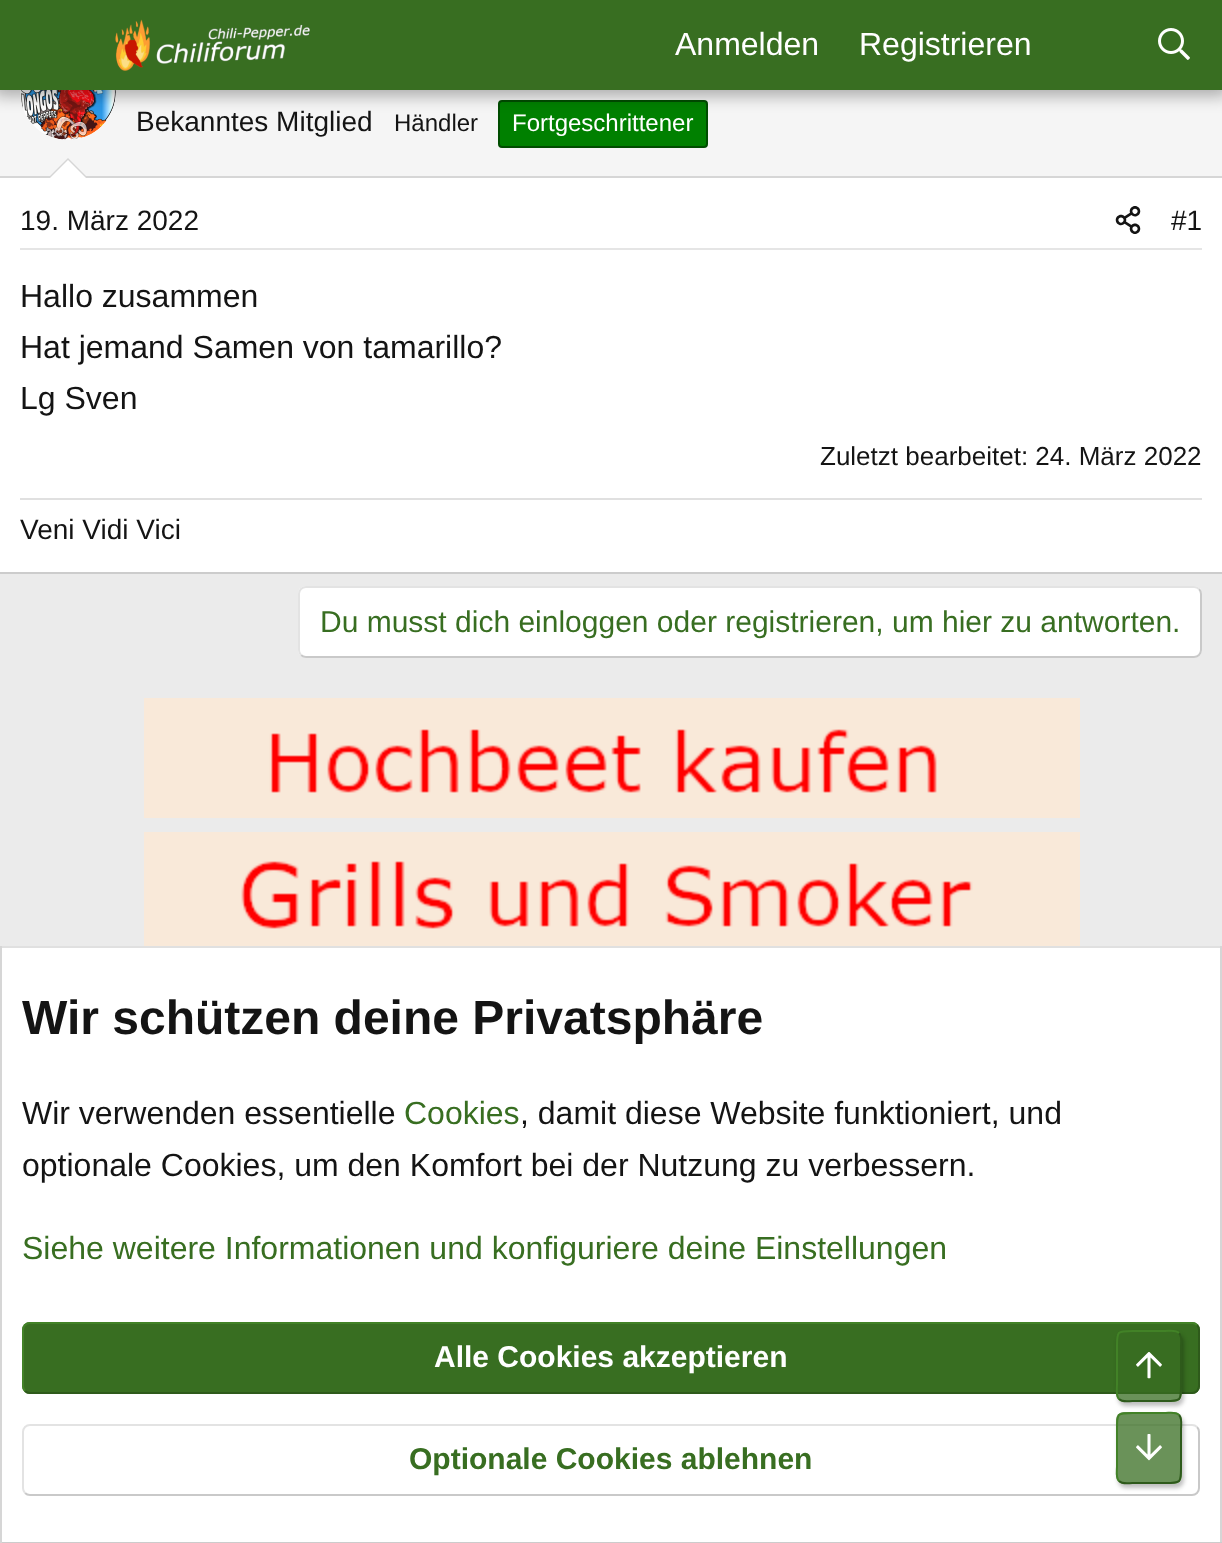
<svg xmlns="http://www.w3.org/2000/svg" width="1222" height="1543">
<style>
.a{font:32px Liberation Sans;fill:#fff}
.b{font:28px Liberation Sans;fill:#141414}
.c{font:24px Liberation Sans;fill:#141414}
.d{font:24px Liberation Sans;fill:#fff}
.e{font:32px Liberation Sans;fill:#141414}
.f{font:26px Liberation Sans;fill:#141414}
.g{font:30px Liberation Sans;fill:#386e21}
.h{font:bold 48px Liberation Sans;fill:#141414}
.i{font:32px Liberation Sans;fill:#386e21}
.j{font:bold 30px Liberation Sans;fill:#fff}
.k{font:bold 30px Liberation Sans;fill:#386e21}
</style>
<defs>
<clipPath id="clip1"><path d="M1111 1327h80v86h-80zm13 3h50c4.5 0 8 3.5 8 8v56c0 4.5-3.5 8-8 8h-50c-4.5 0-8-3.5-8-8v-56c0-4.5 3.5-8 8-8z" clip-rule="evenodd"/></clipPath>
<clipPath id="clip2"><path d="M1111 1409h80v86h-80zm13 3h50c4.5 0 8 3.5 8 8v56c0 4.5-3.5 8-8 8h-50c-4.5 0-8-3.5-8-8v-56c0-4.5 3.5-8 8-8z" clip-rule="evenodd"/></clipPath>
</defs>
<rect width="100%" height="100%" fill="#ebebeb"/>
<path fill="#f5f5f5" d="M0 90h1222v86H0z"/>
<circle fill="#fff" cx="68" cy="92" r="48"/>
<image href="3.png" x="21" y="90" width="95" height="50"/>
<rect fill="#008000" stroke="#004d00" stroke-width="2" x="499" y="101" width="208" height="46" rx="3"/>
<path fill="#0000004d" filter="blur(8px)" d="M-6 -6h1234v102H-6z"/>
<path fill="#386e21" d="M0 0h1222v90H0z"/>
<image href="1.png" x="115" y="19" width="195" height="52"/>
<image href="2.png" x="1158" y="28" width="32" height="32"/>
<path fill="#fff" d="M0 178h1222v394H0z"/>
<path fill="#ccc" d="M0 572h1222v2H0z"/>
<path fill="#d6d6d6" d="M0 176h1222v2H0z"/>
<path fill="#d6d6d6" d="M88 178h-40l20-20z"/>
<path fill="#fff" d="M86 178h-36l18-18z"/>
<path fill="#e5e5e5" d="M20 248h1182v2H20z"/>
<image href="4.png" x="1115" y="206" width="26" height="28"/>
<path fill="#e0e0e0" d="M20 498h1182v2H20z"/>
<rect fill="#fff" x="298" y="586" width="904" height="72" rx="8"/>
<path fill="none" stroke="#c9c9c9" stroke-width="2" d="M1199 589c1.5 1.5 2 3 2 5v56c0 2-.5 3.5-2 5c-1.5 1.5-3 2-5 2h-888c-2 0-3.5-.5-5-2"/>
<path fill="none" stroke="#e3e3e3" stroke-width="2" d="M301 655c-1.5-1.5-2-3-2-5v-56c0-2 .5-3.5 2-5c1.5-1.5 3-2 5-2h888c2 0 3.5 .5 5 2"/>
<image href="5.png" x="144" y="698" width="936" height="120"/>
<image href="6.png" x="144" y="832" width="936" height="114"/>
<path fill="#fff" d="M2 948h1218v594H2z"/>
<path fill="#e0e0e0" d="M0 946h1222v2H0z"/>
<path fill="#d6d6d6" d="M1220 946h2v597H1220z"/>
<path fill="#ccc" d="M0 1542h1222v1H0z"/>
<path fill="#d6d6d6" d="M0 946h2v597H0z"/>
<rect fill="#386e21" x="22" y="1322" width="1178" height="72" rx="8"/>
<path fill="none" stroke="#2e5a1b" stroke-width="2" d="M1197 1325c1.5 1.5 2 3 2 5v56c0 2-.5 3.5-2 5c-1.5 1.5-3 2-5 2h-1162c-2 0-3.5-.5-5-2"/>
<path fill="none" stroke="#428227" stroke-width="2" d="M25 1391c-1.5-1.5-2-3-2-5v-56c0-2 .5-3.5 2-5c1.5-1.5 3-2 5-2h1162c2 0 3.5 .5 5 2"/>
<path fill="none" stroke="#c9c9c9" stroke-width="2" d="M1197 1427c1.5 1.5 2 3 2 5v56c0 2-.5 3.5-2 5c-1.5 1.5-3 2-5 2h-1162c-2 0-3.5-.5-5-2"/>
<path fill="none" stroke="#e3e3e3" stroke-width="2" d="M25 1493c-1.5-1.5-2-3-2-5v-56c0-2 .5-3.5 2-5c1.5-1.5 3-2 5-2h1162c2 0 3.5 .5 5 2"/>
<g clip-path="url(#clip1)">
<rect fill="#00000040" filter="blur(2px)" x="1118" y="1334" width="66" height="72" rx="8"/>
</g>
<rect fill="#386e21bf" x="1116" y="1330" width="66" height="72" rx="8"/>
<path fill="none" stroke="#2e5a1b" stroke-width="2" d="M1179 1333c3.5 3.5 2 10.5 2 14.5v37c0 16 .5 16.5-15.5 16.5h-33c-4 0-10 1.5-13.5-2"/>
<path fill="none" stroke="#428227" stroke-width="2" d="M1119 1399c-3.5-3.5-2-10.5-2-14.5v-37c0-16-.5-16.5 15.5-16.5h33c4 0 10-1.5 13.5 2"/>
<image href="7.png" x="1136" y="1352" width="26" height="27"/>
<g clip-path="url(#clip2)">
<rect fill="#00000040" filter="blur(2px)" x="1118" y="1416" width="66" height="72" rx="8"/>
</g>
<rect fill="#386e21bf" x="1116" y="1412" width="66" height="72" rx="8"/>
<path fill="none" stroke="#2e5a1b" stroke-width="2" d="M1179 1415c3.5 3.5 2 10.5 2 14.5v37c0 16 .5 16.5-15.5 16.5h-33c-4 0-10 1.5-13.5-2"/>
<path fill="none" stroke="#428227" stroke-width="2" d="M1119 1481c-3.5-3.5-2-10.5-2-14.5v-37c0-16-.5-16.5 15.5-16.5h33c4 0 10-1.5 13.5 2"/>
<image href="8.png" x="1136" y="1434" width="26" height="27"/>
<text class="a" x="675" y="55">Anmelden</text>
<text class="a" x="859" y="55">Registrieren</text>
<text class="b" x="136" y="131">Bekanntes Mitglied</text>
<text class="c" x="394" y="131">Händler</text>
<text class="d" x="512" y="131">Fortgeschrittener</text>
<text class="b" x="20" y="230">19. März 2022</text>
<text class="b" x="1171" y="230">#1</text>
<text class="e" x="20" y="307">Hallo zusammen</text>
<text class="e" x="20" y="358">Hat jemand Samen von tamarillo?</text>
<text class="e" x="20" y="409">Lg Sven</text>
<text class="f" x="820" y="465">Zuletzt bearbeitet: 24. März 2022</text>
<text class="b" x="20" y="539">Veni Vidi Vici</text>
<text class="g" x="320" y="632">Du musst dich einloggen oder registrieren, um hier zu antworten.</text>
<text class="h" x="22" y="1034">Wir schützen deine Privatsphäre</text>
<text class="e" x="22" y="1124">Wir verwenden essentielle</text>
<text class="i" x="404" y="1124">Cookies</text>
<text class="e" x="520" y="1124">, damit diese Website funktioniert, und</text>
<text class="e" x="22" y="1176">optionale Cookies, um den Komfort bei der Nutzung zu verbessern.</text>
<text class="i" x="22" y="1259">Siehe weitere Informationen und konfiguriere deine Einstellungen</text>
<text class="j" x="434" y="1367">Alle Cookies akzeptieren</text>
<text class="k" x="409" y="1469">Optionale Cookies ablehnen</text>
</svg>
